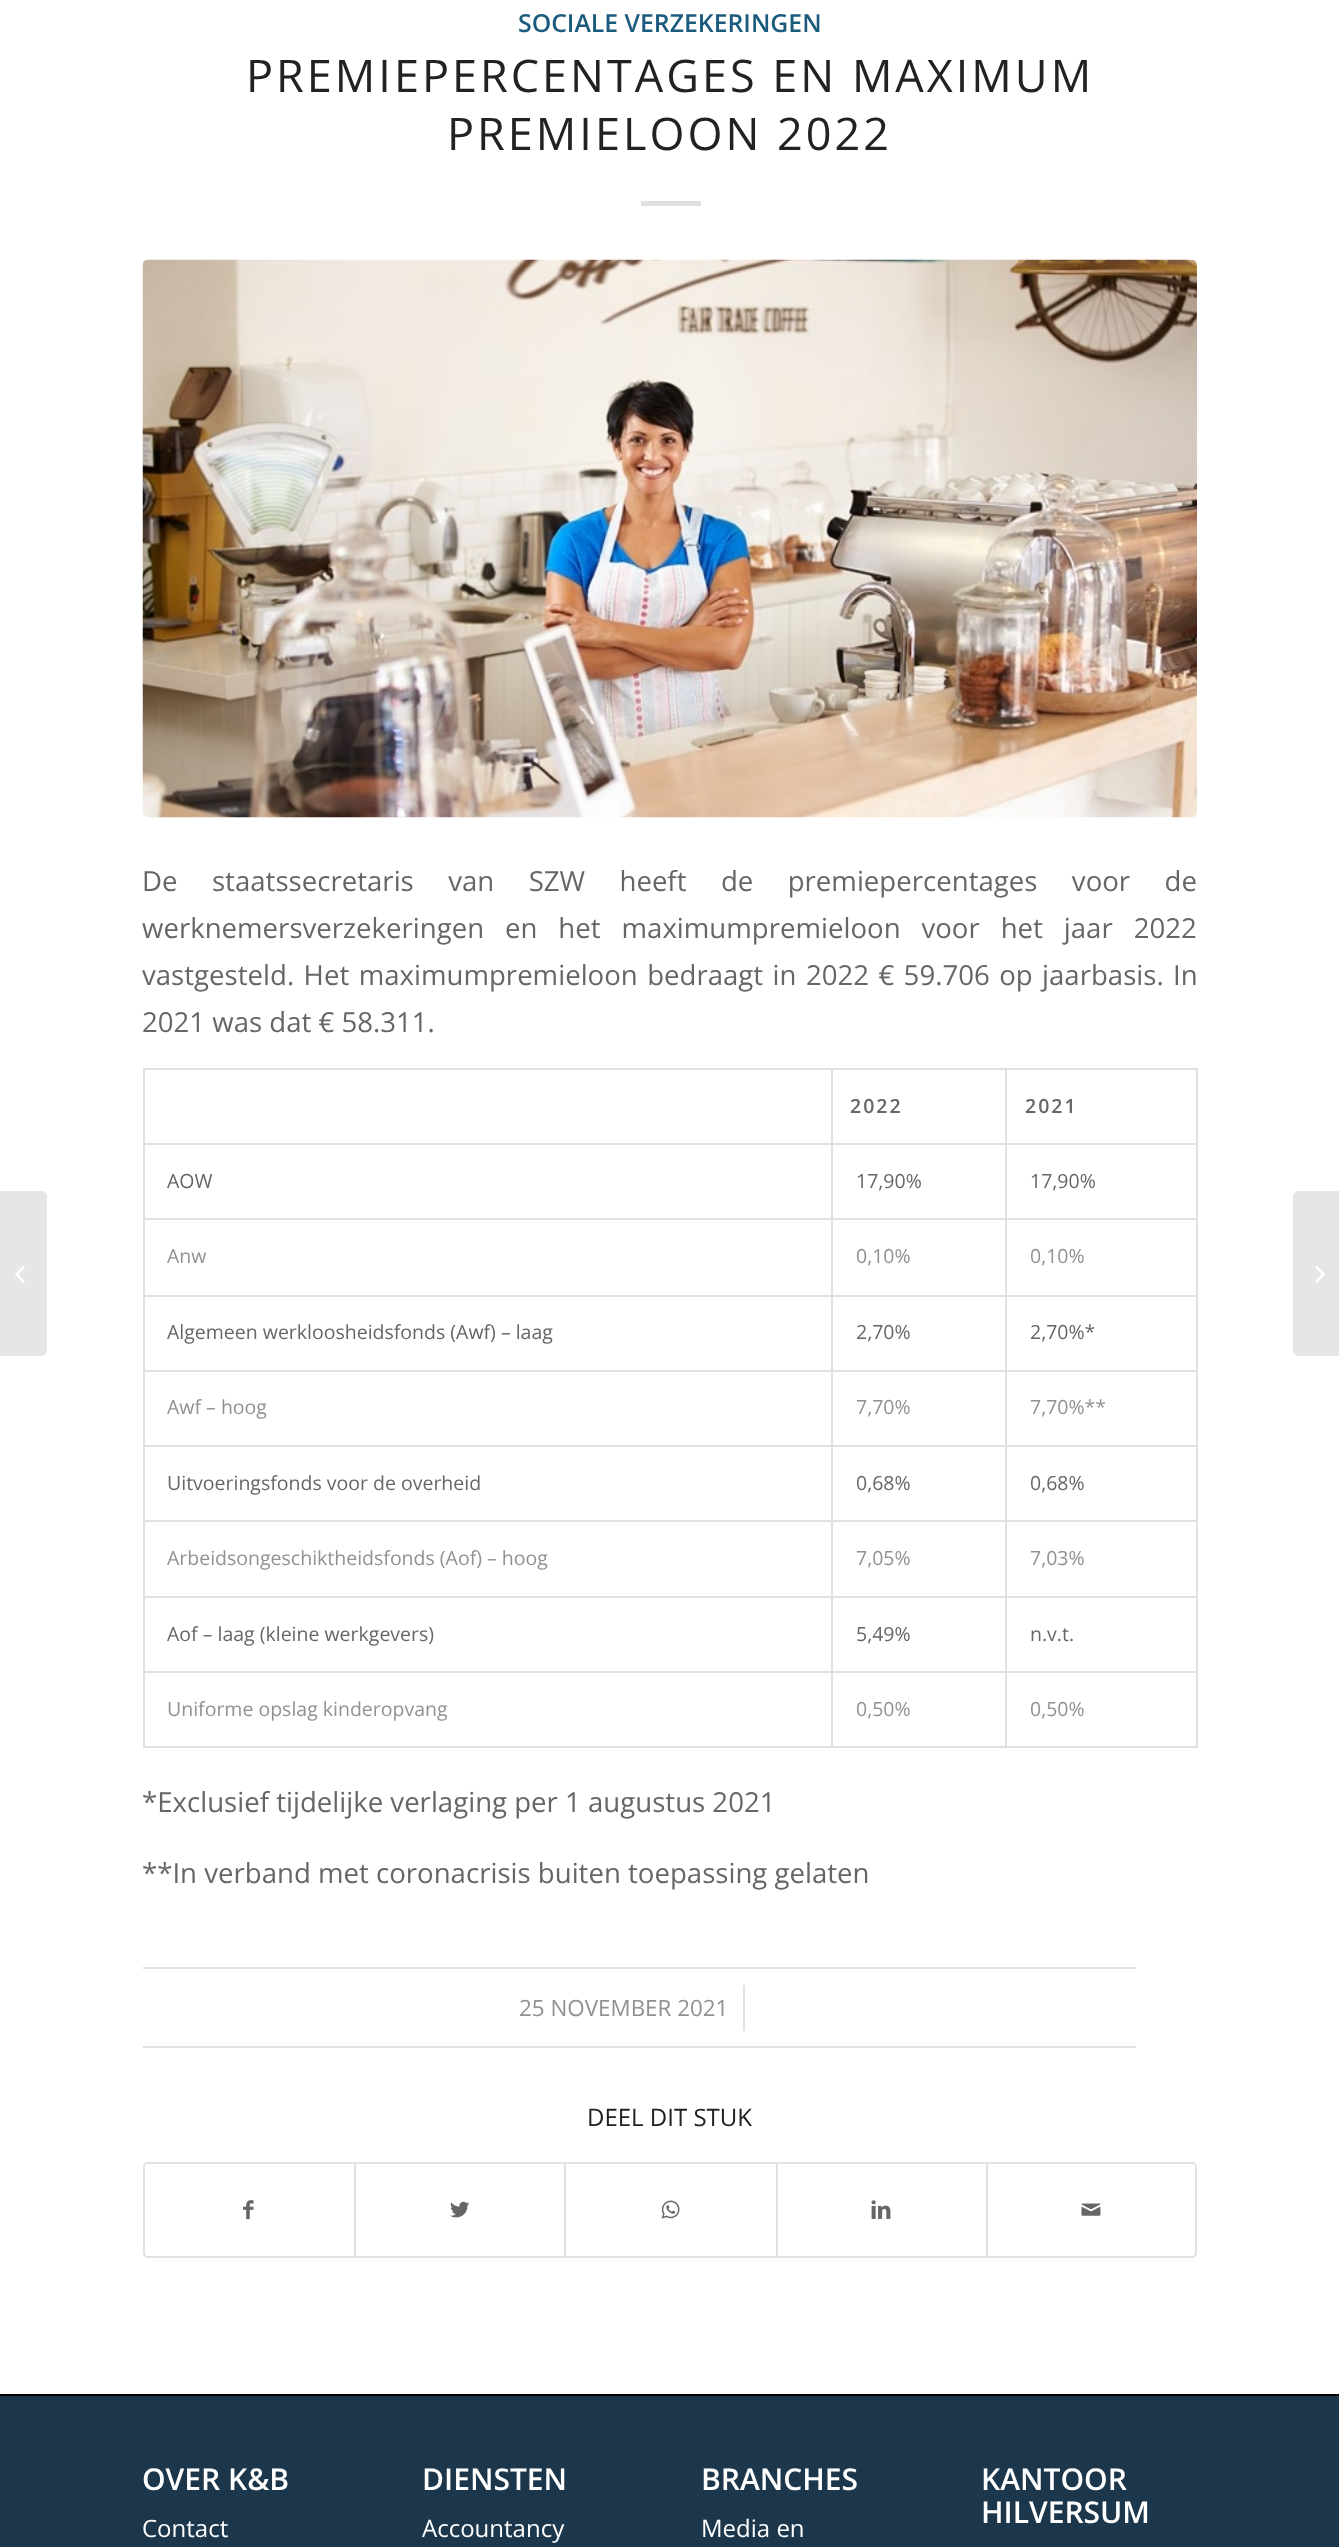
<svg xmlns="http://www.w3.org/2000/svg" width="1339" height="2547">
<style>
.a{font:600 24.8px Open Sans;fill:#1b5b7d}
.b{font:45px Open Sans;letter-spacing:3px;fill:#222}
.c{font:27.6px Open Sans;fill:#666}
.d{font:600 19.5px Open Sans;letter-spacing:2px;fill:#666}
.e{font:19.5px Open Sans;fill:#666}
.f{font:19.5px Open Sans;fill:#919191}
.g{font:22.4px Open Sans;fill:#919191}
.h{font:24px Open Sans;fill:#222}
.i{font:600 30px Open Sans;fill:#fff}
.j{font:24px Open Sans;fill:#fff}
</style>
<rect width="100%" height="100%" fill="#fff"/>
<path fill="#e6e6e6" d="M0 1191h41c3.5 0 6 2.5 6 6v153c0 3.5-2.5 6-6 6h-41z"/>
<image href="1.png" x="15" y="1266" width="10" height="17"/>
<path fill="#e1e1e1" d="M641 201h60v5H641z"/>
<image href="2.png" x="142" y="259" width="1055" height="559"/>
<path fill="#e1e1e1" d="M143 1068h1054v2H143z"/>
<path fill="#e1e1e1" d="M143 1143h1054v2H143z"/>
<path fill="#e1e1e1" d="M1196 1218h2v530H1196z"/>
<path fill="#e1e1e1" d="M1196 1143h2v77H1196z"/>
<path fill="#e1e1e1" d="M1005 1746h192v2H1005z"/>
<path fill="#e1e1e1" d="M1005 1671h2v77H1005z"/>
<path fill="#e1e1e1" d="M1005 1671h192v2H1005z"/>
<path fill="#e1e1e1" d="M1005 1596h2v77H1005z"/>
<path fill="#e1e1e1" d="M1005 1596h192v2H1005z"/>
<path fill="#e1e1e1" d="M1005 1520h2v78H1005z"/>
<path fill="#e1e1e1" d="M1005 1520h192v2H1005z"/>
<path fill="#e1e1e1" d="M1005 1445h2v76H1005z"/>
<path fill="#e1e1e1" d="M1005 1445h192v2H1005z"/>
<path fill="#e1e1e1" d="M1005 1370h2v76H1005z"/>
<path fill="#e1e1e1" d="M1005 1370h192v2H1005z"/>
<path fill="#e1e1e1" d="M1005 1295h2v76H1005z"/>
<path fill="#e1e1e1" d="M1005 1295h192v2H1005z"/>
<path fill="#e1e1e1" d="M1005 1218h2v78H1005z"/>
<path fill="#e1e1e1" d="M1005 1218h192v2H1005z"/>
<path fill="#e1e1e1" d="M1005 1143h2v77H1005z"/>
<path fill="#e1e1e1" d="M831 1746h176v2H831z"/>
<path fill="#e1e1e1" d="M831 1671h2v77H831z"/>
<path fill="#e1e1e1" d="M831 1671h176v2H831z"/>
<path fill="#e1e1e1" d="M831 1596h2v77H831z"/>
<path fill="#e1e1e1" d="M831 1596h176v2H831z"/>
<path fill="#e1e1e1" d="M831 1520h2v78H831z"/>
<path fill="#e1e1e1" d="M831 1520h176v2H831z"/>
<path fill="#e1e1e1" d="M831 1445h2v76H831z"/>
<path fill="#e1e1e1" d="M831 1445h176v2H831z"/>
<path fill="#e1e1e1" d="M831 1370h2v76H831z"/>
<path fill="#e1e1e1" d="M831 1370h176v2H831z"/>
<path fill="#e1e1e1" d="M831 1295h2v76H831z"/>
<path fill="#e1e1e1" d="M831 1295h176v2H831z"/>
<path fill="#e1e1e1" d="M831 1218h2v78H831z"/>
<path fill="#e1e1e1" d="M831 1218h176v2H831z"/>
<path fill="#e1e1e1" d="M831 1143h2v77H831z"/>
<path fill="#e1e1e1" d="M831 1068h2v77H831z"/>
<path fill="#e1e1e1" d="M143 1746h690v2H143z"/>
<path fill="#e1e1e1" d="M143 1671h2v77H143z"/>
<path fill="#e1e1e1" d="M143 1671h690v2H143z"/>
<path fill="#e1e1e1" d="M143 1596h2v77H143z"/>
<path fill="#e1e1e1" d="M143 1596h690v2H143z"/>
<path fill="#e1e1e1" d="M143 1520h2v78H143z"/>
<path fill="#e1e1e1" d="M143 1520h690v2H143z"/>
<path fill="#e1e1e1" d="M143 1445h2v76H143z"/>
<path fill="#e1e1e1" d="M143 1445h690v2H143z"/>
<path fill="#e1e1e1" d="M143 1370h2v76H143z"/>
<path fill="#e1e1e1" d="M143 1370h690v2H143z"/>
<path fill="#e1e1e1" d="M143 1295h2v76H143z"/>
<path fill="#e1e1e1" d="M143 1295h690v2H143z"/>
<path fill="#e1e1e1" d="M143 1218h2v78H143z"/>
<path fill="#e1e1e1" d="M143 1218h690v2H143z"/>
<path fill="#e1e1e1" d="M143 1143h2v77H143z"/>
<path fill="#e1e1e1" d="M143 1068h2v77H143z"/>
<path fill="#e1e1e1" d="M1005 1068h2v77H1005z"/>
<path fill="#e1e1e1" d="M1196 1068h2v77H1196z"/>
<path fill="#e1e1e1" d="M143 1967h993v2H143z"/>
<path fill="#e1e1e1" d="M143 2046h993v2H143z"/>
<path fill="#e1e1e1" d="M743 1985h2v46H743z"/>
<rect fill="none" stroke="#e1e1e1" stroke-width="2" x="144" y="2163" width="1052" height="94" rx="4"/>
<image href="3.png" x="243" y="2200" width="11" height="20"/>
<path fill="#e1e1e1" d="M354 2163h2v93H354z"/>
<image href="4.png" x="450" y="2201" width="20" height="17"/>
<path fill="#e1e1e1" d="M564 2163h2v93H564z"/>
<image href="5.png" x="661" y="2200" width="19" height="19"/>
<path fill="#e1e1e1" d="M776 2163h2v93H776z"/>
<image href="6.png" x="871" y="2200" width="20" height="19"/>
<path fill="#e1e1e1" d="M986 2163h2v93H986z"/>
<image href="7.png" x="1081" y="2203" width="20" height="13"/>
<path fill="#1c374c" d="M0 2396h1339v151H0z"/>
<path fill="#000" d="M0 2394h1339v2H0z"/>
<path fill="#e6e6e6" d="M1299 1191h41v165h-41c-3.5 0-6-2.5-6-6v-153c0-3.5 2.5-6 6-6z"/>
<image href="8.png" x="1315" y="1266" width="10" height="17"/>
<text class="a" x="518" y="32">SOCIALE VERZEKERINGEN</text>
<text class="b" x="246" y="92">PREMIEPERCENTAGES EN MAXIMUM</text>
<text class="b" x="447" y="150">PREMIELOON 2022</text>
<text class="c" x="142" y="891" word-spacing="27.25">De staatssecretaris van SZW heeft de premiepercentages voor de</text>
<text class="c" x="142" y="938" word-spacing="13.75">werknemersverzekeringen en het maximumpremieloon voor het jaar 2022</text>
<text class="c" x="142" y="985" word-spacing="2.25">vastgesteld. Het maximumpremieloon bedraagt in 2022 € 59.706 op jaarbasis. In</text>
<text class="c" x="142" y="1032">2021 was dat € 58.311.</text>
<text class="d" x="850" y="1113">2022</text>
<text class="d" x="1025" y="1113">2021</text>
<text class="e" x="167" y="1188">AOW</text>
<text class="e" x="856" y="1188">17,90%</text>
<text class="e" x="1030" y="1188">17,90%</text>
<text class="f" x="167" y="1263">Anw</text>
<text class="f" x="856" y="1263">0,10%</text>
<text class="f" x="1030" y="1263">0,10%</text>
<text class="e" x="167" y="1339">Algemeen werkloosheidsfonds (Awf) – laag</text>
<text class="e" x="856" y="1339">2,70%</text>
<text class="e" x="1030" y="1339">2,70%*</text>
<text class="f" x="167" y="1414">Awf – hoog</text>
<text class="f" x="856" y="1414">7,70%</text>
<text class="f" x="1030" y="1414">7,70%**</text>
<text class="e" x="167" y="1490">Uitvoeringsfonds voor de overheid</text>
<text class="e" x="856" y="1490">0,68%</text>
<text class="e" x="1030" y="1490">0,68%</text>
<text class="f" x="167" y="1565">Arbeidsongeschiktheidsfonds (Aof) – hoog</text>
<text class="f" x="856" y="1565">7,05%</text>
<text class="f" x="1030" y="1565">7,03%</text>
<text class="e" x="167" y="1641">Aof – laag (kleine werkgevers)</text>
<text class="e" x="856" y="1641">5,49%</text>
<text class="e" x="1030" y="1641">n.v.t.</text>
<text class="f" x="167" y="1716">Uniforme opslag kinderopvang</text>
<text class="f" x="856" y="1716">0,50%</text>
<text class="f" x="1030" y="1716">0,50%</text>
<text class="c" x="142" y="1812">*Exclusief tijdelijke verlaging per 1 augustus 2021</text>
<text class="c" x="142" y="1883">**In verband met coronacrisis buiten toepassing gelaten</text>
<text class="g" x="519" y="2016">25 NOVEMBER 2021</text>
<text class="h" x="587" y="2126">DEEL DIT STUK</text>
<text class="i" x="142" y="2490">OVER K&amp;B</text>
<text class="j" x="142" y="2537">Contact</text>
<text class="i" x="422" y="2490">DIENSTEN</text>
<text class="j" x="422" y="2537">Accountancy</text>
<text class="i" x="701" y="2490">BRANCHES</text>
<text class="j" x="701" y="2537">Media en</text>
<text class="i" x="981" y="2490">KANTOOR</text>
<text class="i" x="981" y="2523">HILVERSUM</text>
</svg>
